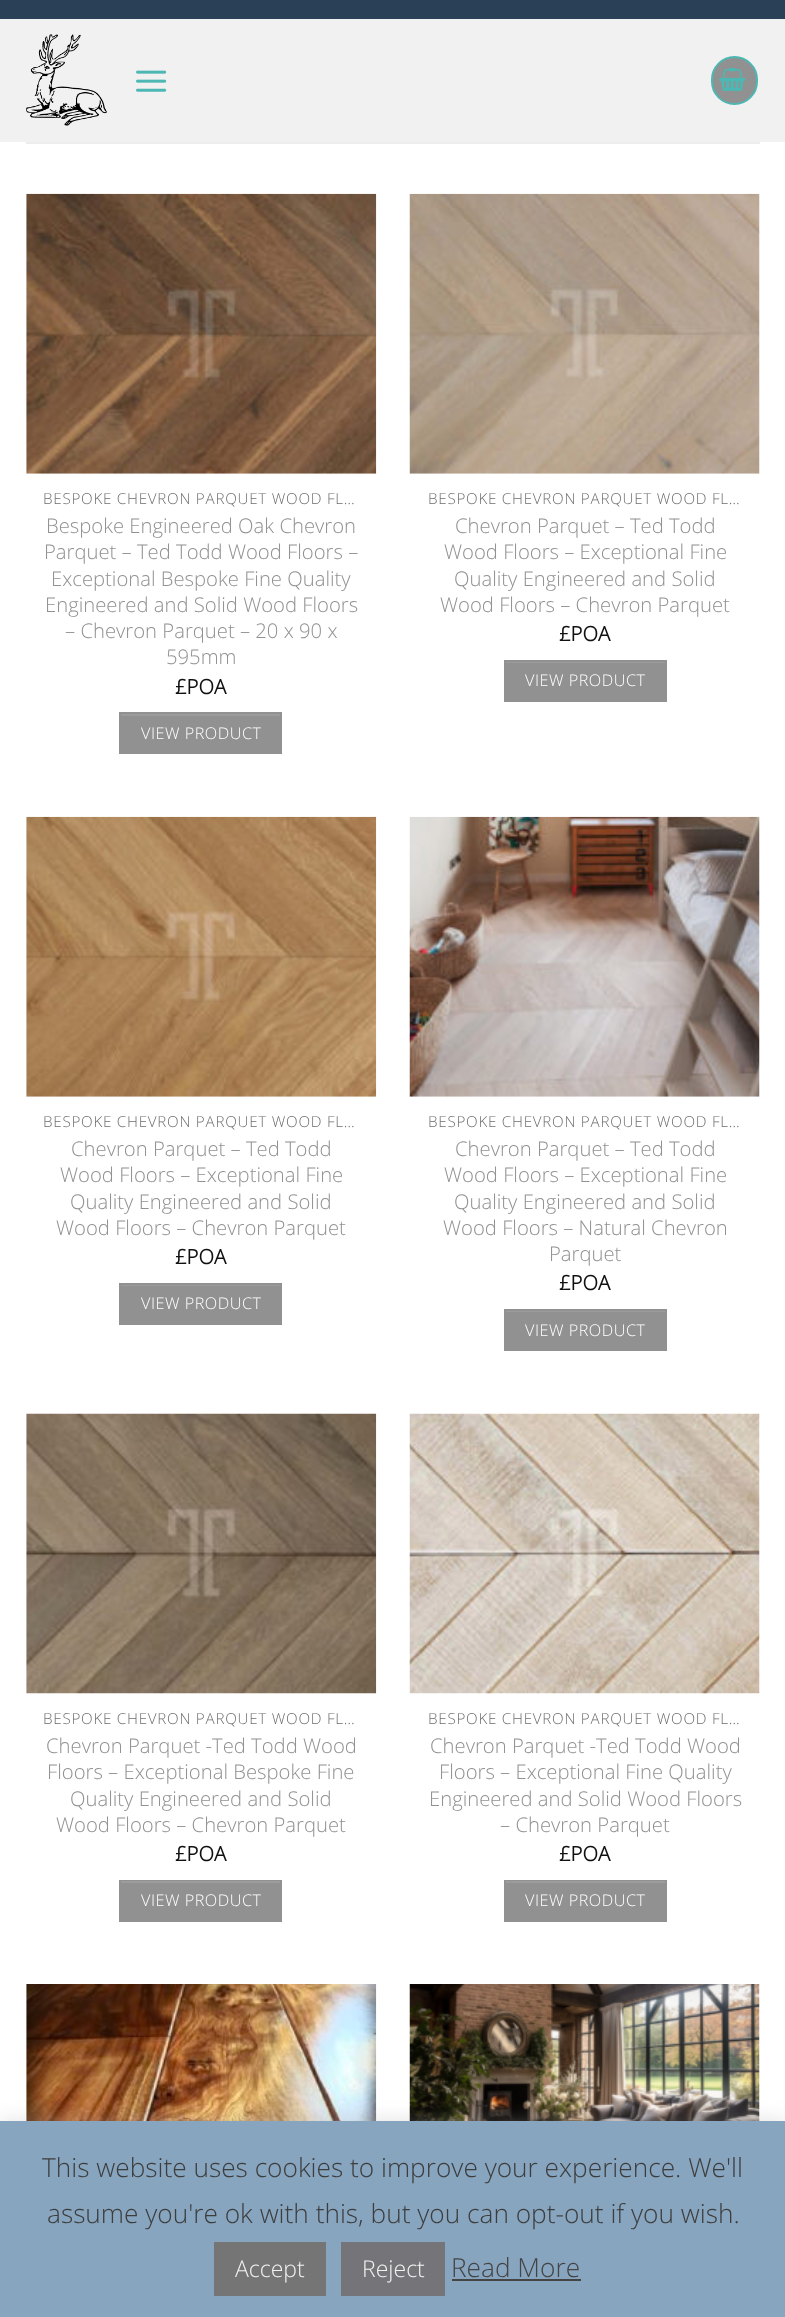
<svg xmlns="http://www.w3.org/2000/svg" width="785" height="2317">
<style>
.a{font:300 15.2px Open Sans;letter-spacing:0.75px;fill:#6e6e6e}
.b{font:300 20.25px Open Sans;fill:#919191}
.c{font:bold 20.25px Open Sans;fill:#111}
.d{font:300 16.25px Open Sans;letter-spacing:0.5px;fill:#fff}
.e{font:300 26.25px Open Sans;fill:#3d3d3d}
.f{font:300 23px Open Sans;fill:#f2f2f2}
.g{font:300 26.25px Open Sans;fill:#444}
</style>
<defs>
<clipPath id="clip1"><path d="M121 714h159v39H121z"/></clipPath>
<clipPath id="clip2"><path d="M506 662h159v38H506z"/></clipPath>
<clipPath id="clip3"><path d="M121 1285h159v38H121z"/></clipPath>
<clipPath id="clip4"><path d="M506 1311h159v38H506z"/></clipPath>
<clipPath id="clip5"><path d="M121 1881h159v39H121z"/></clipPath>
<clipPath id="clip6"><path d="M506 1881h159v39H506z"/></clipPath>
</defs>
<rect width="100%" height="100%" fill="#fff"/>
<path fill="#294057" d="M0 0h785v19H0z"/>
<path fill="#f1f1f1" d="M0 19h785v123H0z"/>
<image href="1.png" x="26" y="34" width="81" height="92"/>
<image href="2.png" x="136" y="70" width="31" height="22"/>
<rect fill="#919191" stroke="#4db7b3" stroke-width="2" x="712" y="57" width="45" height="47" rx="22.5"/>
<image href="3.png" x="719" y="68" width="27" height="23"/>
<path fill="#ededed" d="M26 142h734v2H26z"/>
<image href="4.png" x="26" y="193" width="351" height="281"/>
<path fill="#919191" d="M119 712h163v42H119z"/>
<g clip-path="url(#clip1)">
<path fill="#9c9c9c" fill-rule="evenodd" d="M-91 541h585v385h-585zm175 175h238v38h-238z"/>
</g>
<image href="5.png" x="409" y="193" width="351" height="281"/>
<path fill="#919191" d="M504 660h163v42H504z"/>
<g clip-path="url(#clip2)">
<path fill="#9c9c9c" fill-rule="evenodd" d="M292 488h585v385h-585zm175 175h238v39h-238z"/>
</g>
<image href="6.png" x="26" y="816" width="351" height="281"/>
<path fill="#919191" d="M119 1283h163v42H119z"/>
<g clip-path="url(#clip3)">
<path fill="#9c9c9c" fill-rule="evenodd" d="M-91 1111h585v385h-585zm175 175h238v39h-238z"/>
</g>
<image href="7.png" x="409" y="816" width="351" height="281"/>
<path fill="#919191" d="M504 1309h163v42H504z"/>
<g clip-path="url(#clip4)">
<path fill="#9c9c9c" fill-rule="evenodd" d="M292 1138h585v384h-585zm175 174h238v39h-238z"/>
</g>
<image href="8.png" x="26" y="1413" width="351" height="281"/>
<path fill="#919191" d="M119 1880h163v42H119z"/>
<g clip-path="url(#clip5)">
<path fill="#9c9c9c" fill-rule="evenodd" d="M-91 1708h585v385h-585zm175 175h238v39h-238z"/>
</g>
<image href="9.png" x="409" y="1413" width="351" height="281"/>
<path fill="#919191" d="M504 1880h163v42H504z"/>
<g clip-path="url(#clip6)">
<path fill="#9c9c9c" fill-rule="evenodd" d="M292 1708h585v385h-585zm175 175h238v39h-238z"/>
</g>
<image href="10.png" x="26" y="1984" width="351" height="137"/>
<image href="11.png" x="409" y="1984" width="351" height="137"/>
<path fill="#acabab4d" filter="blur(9px)" d="M0 2119h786v196H0z"/>
<path fill="#87a5bf" d="M0 2121h785v196H0z"/>
<path fill="#757575" d="M214 2242h112v54H214z"/>
<path fill="#757579" d="M341 2242h104v54H341z"/>
<path fill="#444" d="M452 2279h129v2H452z"/>
<text class="a" x="43" y="504">BESPOKE CHEVRON PARQUET WOOD FL…</text>
<text class="b" x="46" y="533">Bespoke Engineered Oak Chevron</text>
<text class="b" x="44" y="559">Parquet – Ted Todd Wood Floors –</text>
<text class="b" x="51" y="586">Exceptional Bespoke Fine Quality</text>
<text class="b" x="45" y="612">Engineered and Solid Wood Floors</text>
<text class="b" x="65" y="638">– Chevron Parquet – 20 x 90 x</text>
<text class="b" x="166" y="664">595mm</text>
<text class="c" x="175" y="694">£POA</text>
<text class="d" x="141" y="739">VIEW PRODUCT</text>
<text class="a" x="428" y="504">BESPOKE CHEVRON PARQUET WOOD FL…</text>
<text class="b" x="455" y="533">Chevron Parquet – Ted Todd</text>
<text class="b" x="444" y="559">Wood Floors – Exceptional Fine</text>
<text class="b" x="454" y="586">Quality Engineered and Solid</text>
<text class="b" x="440" y="612">Wood Floors – Chevron Parquet</text>
<text class="c" x="559" y="641">£POA</text>
<text class="d" x="525" y="686">VIEW PRODUCT</text>
<text class="a" x="43" y="1127">BESPOKE CHEVRON PARQUET WOOD FL…</text>
<text class="b" x="71" y="1156">Chevron Parquet – Ted Todd</text>
<text class="b" x="60" y="1182">Wood Floors – Exceptional Fine</text>
<text class="b" x="70" y="1209">Quality Engineered and Solid</text>
<text class="b" x="56" y="1235">Wood Floors – Chevron Parquet</text>
<text class="c" x="175" y="1264">£POA</text>
<text class="d" x="141" y="1309">VIEW PRODUCT</text>
<text class="a" x="428" y="1127">BESPOKE CHEVRON PARQUET WOOD FL…</text>
<text class="b" x="455" y="1156">Chevron Parquet – Ted Todd</text>
<text class="b" x="444" y="1182">Wood Floors – Exceptional Fine</text>
<text class="b" x="454" y="1209">Quality Engineered and Solid</text>
<text class="b" x="443" y="1235">Wood Floors – Natural Chevron</text>
<text class="b" x="549" y="1261">Parquet</text>
<text class="c" x="559" y="1290">£POA</text>
<text class="d" x="525" y="1336">VIEW PRODUCT</text>
<text class="a" x="43" y="1724">BESPOKE CHEVRON PARQUET WOOD FL…</text>
<text class="b" x="46" y="1753">Chevron Parquet -Ted Todd Wood</text>
<text class="b" x="47" y="1779">Floors – Exceptional Bespoke Fine</text>
<text class="b" x="70" y="1806">Quality Engineered and Solid</text>
<text class="b" x="56" y="1832">Wood Floors – Chevron Parquet</text>
<text class="c" x="175" y="1861">£POA</text>
<text class="d" x="141" y="1906">VIEW PRODUCT</text>
<text class="a" x="428" y="1724">BESPOKE CHEVRON PARQUET WOOD FL…</text>
<text class="b" x="430" y="1753">Chevron Parquet -Ted Todd Wood</text>
<text class="b" x="439" y="1779">Floors – Exceptional Fine Quality</text>
<text class="b" x="429" y="1806">Engineered and Solid Wood Floors</text>
<text class="b" x="500" y="1832">– Chevron Parquet</text>
<text class="c" x="559" y="1861">£POA</text>
<text class="d" x="525" y="1906">VIEW PRODUCT</text>
<text class="e" x="42" y="2177">This website uses cookies to improve your experience. We'll</text>
<text class="e" x="47" y="2223">assume you're ok with this, but you can opt-out if you wish.</text>
<text class="f" x="235" y="2277">Accept</text>
<text class="f" x="362" y="2277">Reject</text>
<text class="g" x="451" y="2277">Read More</text>
</svg>
